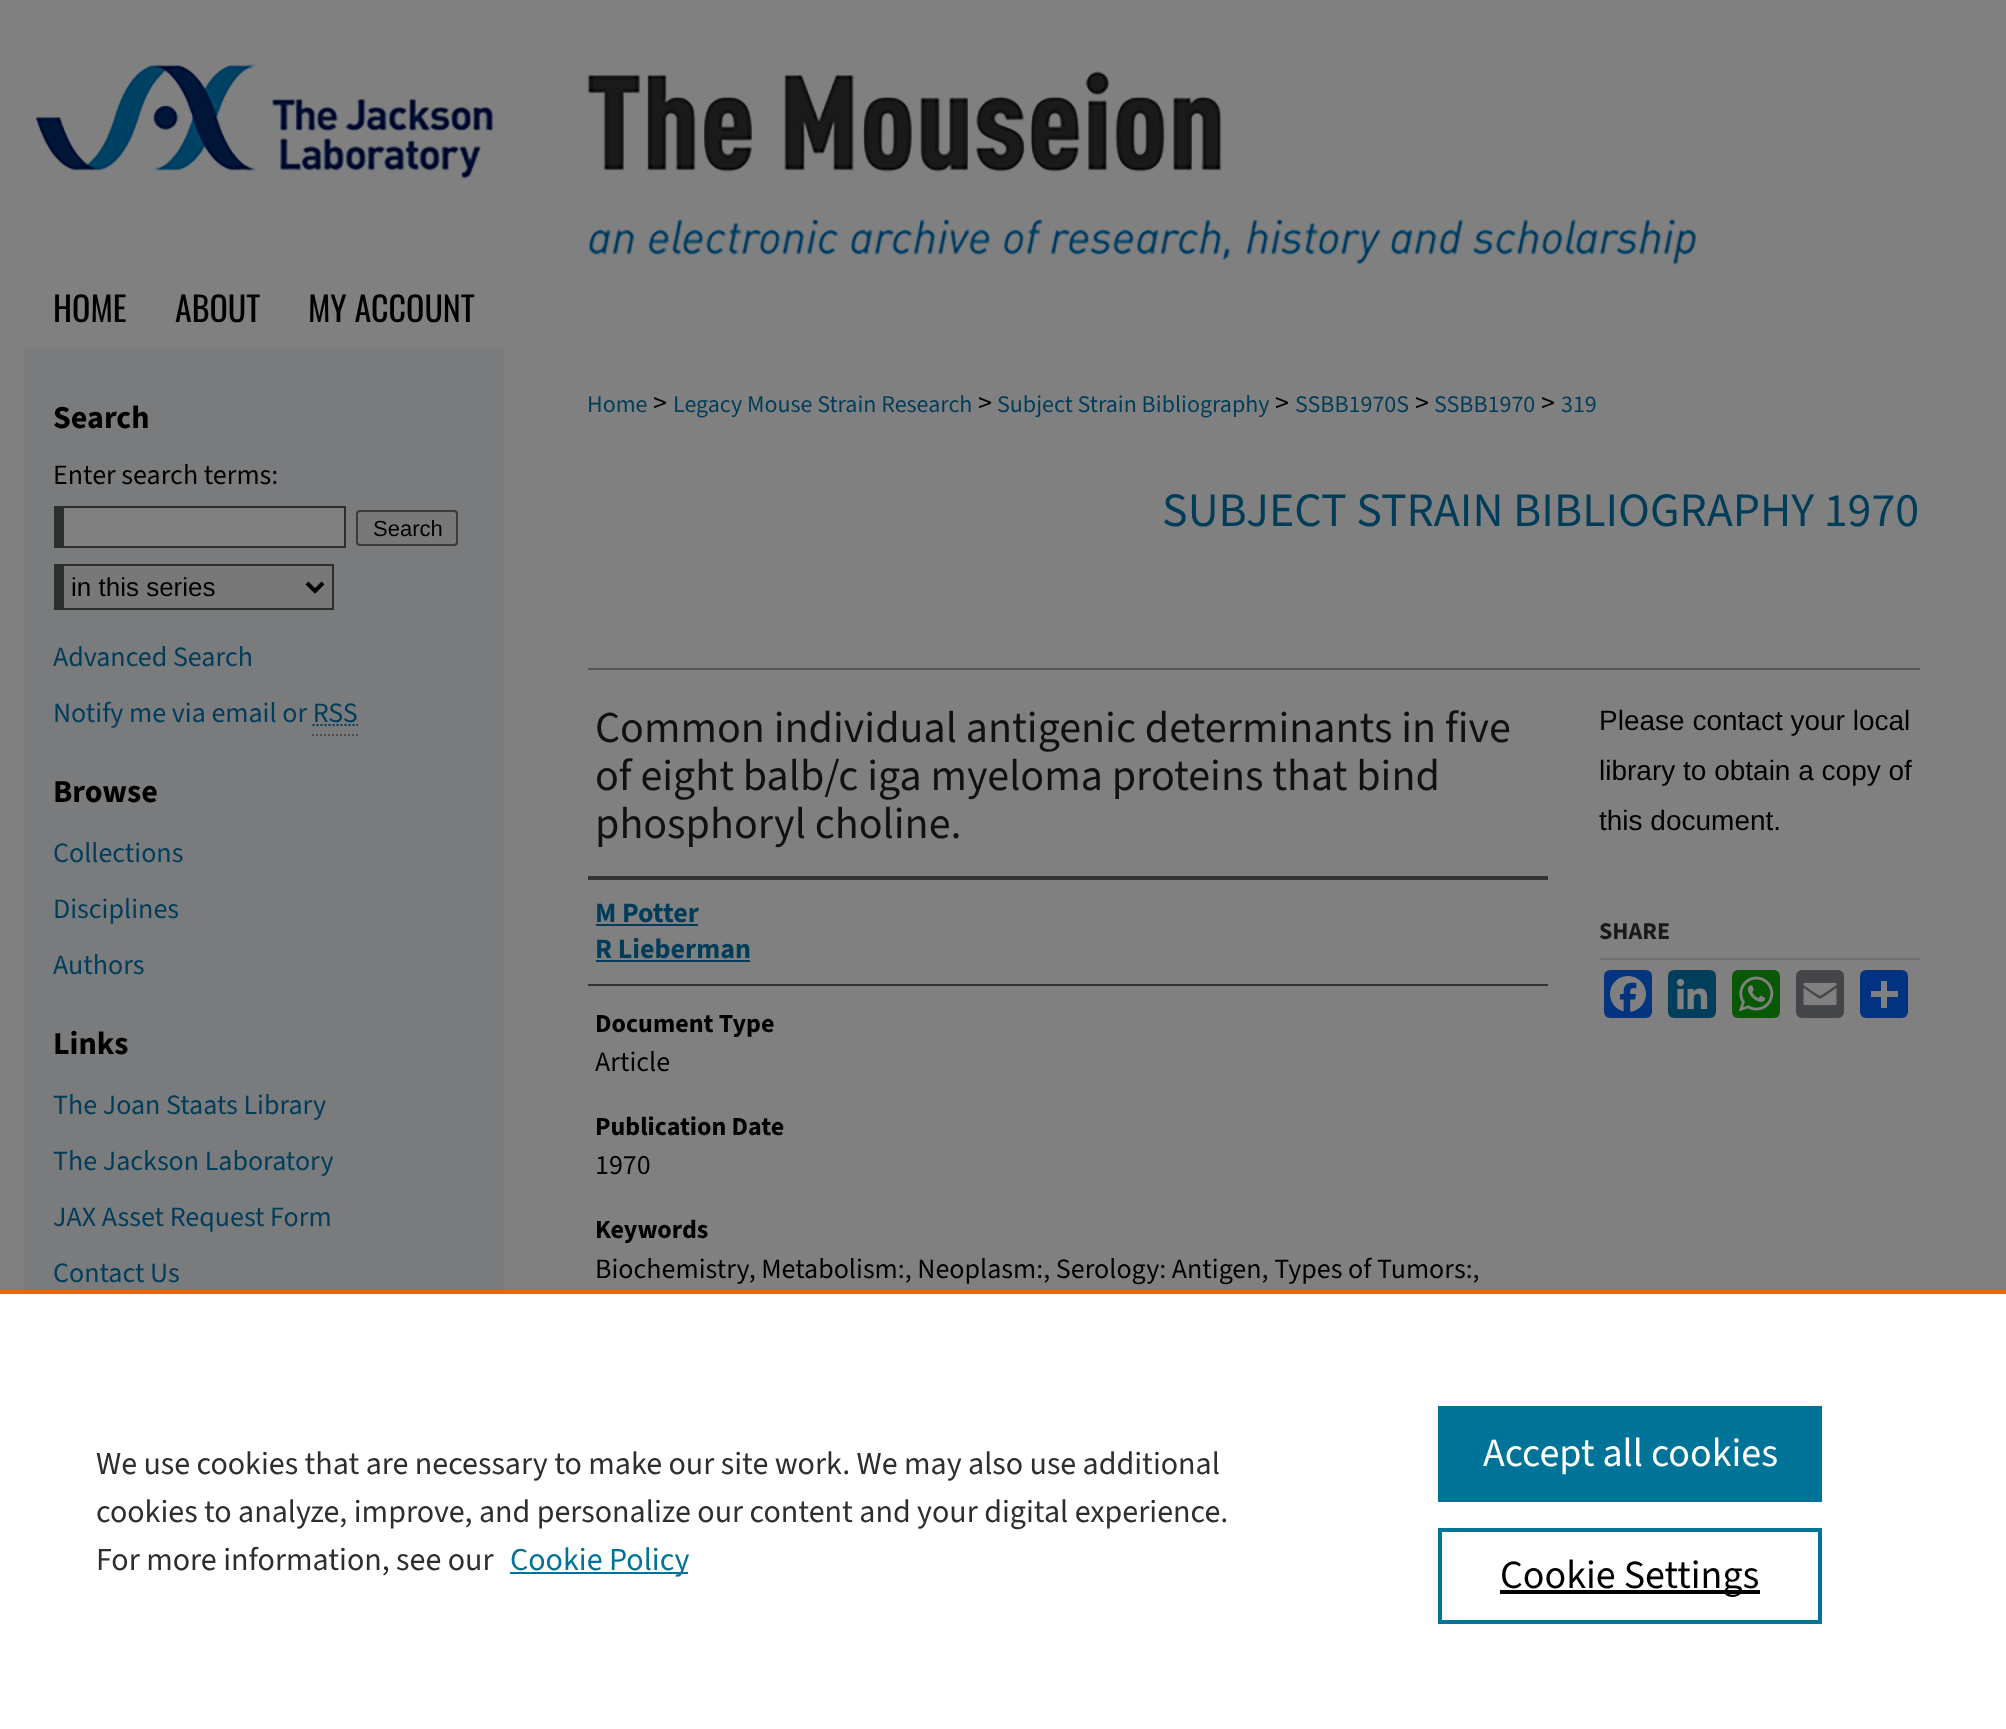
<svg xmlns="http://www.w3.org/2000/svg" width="2006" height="1729">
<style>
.a{font:34px Oswald;fill:#000}
.b{font:bold 32px 'Source Sans 3';fill:#000}
.c{font:28px 'Source Sans 3';fill:#000}
.d{font:22px Liberation Sans;fill:#000}
.e{font:26px Liberation Sans;fill:#000}
.f{font:28px 'Source Sans 3';fill:#013c59}
.g{font:24px 'Source Sans 3';fill:#013c59}
.h{font:48px 'Source Sans 3';fill:#013c59}
.i{font:44px 'Source Sans 3';fill:#111}
.j{font:bold 28px 'Source Sans 3';fill:#013c59}
.k{font:bold 26px 'Source Sans 3';fill:#000}
.l{font:28px Liberation Sans;fill:#000}
.m{font:bold 24px 'Source Sans 3';fill:#1a1a1a}
.n{font:32px 'Source Sans 3';fill:#2e2e2e}
.o{font:32px 'Source Sans 3';fill:#007398}
.p{font:40px 'Source Sans 3';fill:#fff}
.q{font:40px 'Source Sans 3';fill:#000}
</style>
<rect width="100%" height="100%" fill="#808080"/>
<image href="1.png" x="35" y="63" width="459" height="116"/>
<image href="2.png" x="587" y="71" width="1110" height="194"/>
<path fill="#797b7d" d="M24 348h480v942H24z"/>
<path fill="#808080" d="M64 508h280v38H64z"/>
<path fill="#2c2d2d" d="M64 506h282v2H64z"/>
<path fill="#2c2d2d" d="M344 506h2v42H344z"/>
<path fill="#2c2d2d" d="M64 546h282v2H64z"/>
<path fill="#2c2d2d" d="M54 506h10v42H54z"/>
<rect fill="#787878" stroke="#3b3b3b" stroke-width="2" x="357" y="511" width="100" height="34" rx="3"/>
<path fill="#787878" d="M64 566h268v42H64z"/>
<path fill="#2c2d2d" d="M64 564h270v2H64z"/>
<path fill="#2c2d2d" d="M332 564h2v46H332z"/>
<path fill="#2c2d2d" d="M64 608h270v2H64z"/>
<path fill="#2c2d2d" d="M54 564h10v46H54z"/>
<path fill="none" stroke="#000" stroke-width="4" d="M307 583l8 8l8-8"/>
<path fill="none" stroke="#013c59" stroke-width="2" stroke-dasharray="2 2" d="M312.5 725h45.5"/>
<path fill="none" stroke="#4d4d4d" stroke-width="2" stroke-dasharray="2 2" d="M312 735h46"/>
<path fill="#555" d="M588 668h1332v2H588z"/>
<path fill="#333" d="M588 876h960v4H588z"/>
<path fill="#333" d="M588 984h960v2H588z"/>
<path fill="#013c59" d="M596 924h102v2H596z"/>
<path fill="#013c59" d="M596 960h154v2H596z"/>
<path fill="#6f6f6f" d="M1600 958h320v2H1600z"/>
<rect fill="#043380" x="1604" y="970" width="48" height="48" rx="6"/>
<image href="3.png" x="1610" y="976" width="36" height="36"/>
<rect fill="#003e5b" x="1668" y="970" width="48" height="48" rx="6"/>
<image href="4.png" x="1676" y="978" width="32" height="32"/>
<rect fill="#095805" x="1732" y="970" width="48" height="48" rx="6"/>
<image href="5.png" x="1738" y="976" width="36" height="36"/>
<rect fill="#444548" x="1796" y="970" width="48" height="48" rx="6"/>
<image href="6.png" x="1803" y="982" width="34" height="24"/>
<rect fill="#013380" x="1860" y="970" width="48" height="48" rx="6"/>
<path fill="#808080" d="M1881 981h6v27H1881z"/>
<path fill="#808080" d="M1871 991h27v6H1871z"/>
<path fill="#fff" d="M0 1294h2006v435H0z"/>
<path fill="#eb6500" d="M0 1290h2006v4H0z"/>
<path fill="#007398" d="M510 1572h178v2H510z"/>
<path fill="#007398" d="M1438 1406h384v96H1438z"/>
<path fill="none" stroke="#007398" stroke-width="4" d="M1440 1530h380v92H1440z"/>
<path fill="#000" d="M1500 1590h260v4H1500z"/>
<text class="a" x="53" y="322">HOME</text>
<text class="a" x="175" y="322">ABOUT</text>
<text class="a" x="308" y="322">MY ACCOUNT</text>
<text class="b" x="53" y="428">Search</text>
<text class="c" x="53" y="484">Enter search terms:</text>
<text class="d" x="373" y="536">Search</text>
<text class="e" x="71" y="596">in this series</text>
<text class="f" x="53" y="666">Advanced Search</text>
<text class="f" x="53" y="722">Notify me via email or RSS</text>
<text class="b" x="53" y="802">Browse</text>
<text class="f" x="53" y="862">Collections</text>
<text class="f" x="53" y="918">Disciplines</text>
<text class="f" x="53" y="974">Authors</text>
<text class="b" x="53" y="1054">Links</text>
<text class="f" x="53" y="1114">The Joan Staats Library</text>
<text class="f" x="53" y="1170">The Jackson Laboratory</text>
<text class="f" x="53" y="1226">JAX Asset Request Form</text>
<text class="f" x="53" y="1282">Contact Us</text>
<text class="g" x="587" y="412">Home</text>
<text class="c" x="653" y="412">&gt;</text>
<text class="g" x="673" y="412">Legacy Mouse Strain Research</text>
<text class="c" x="978" y="412">&gt;</text>
<text class="g" x="997" y="412">Subject Strain Bibliography</text>
<text class="c" x="1275" y="412">&gt;</text>
<text class="g" x="1295" y="412">SSBB1970S</text>
<text class="c" x="1415" y="412">&gt;</text>
<text class="g" x="1434" y="412">SSBB1970</text>
<text class="c" x="1541" y="412">&gt;</text>
<text class="g" x="1561" y="412">319</text>
<text class="h" x="1162" y="526">SUBJECT STRAIN BIBLIOGRAPHY 1970</text>
<text class="i" x="595" y="742">Common individual antigenic determinants in five</text>
<text class="i" x="595" y="790">of eight balb/c iga myeloma proteins that bind</text>
<text class="i" x="595" y="838">phosphoryl choline.</text>
<text class="j" x="595" y="922">M Potter</text>
<text class="j" x="595" y="958">R Lieberman</text>
<text class="k" x="595" y="1032">Document Type</text>
<text class="c" x="595" y="1071">Article</text>
<text class="k" x="595" y="1135">Publication Date</text>
<text class="c" x="595" y="1174">1970</text>
<text class="k" x="595" y="1238">Keywords</text>
<text class="c" x="595" y="1278">Biochemistry, Metabolism:, Neoplasm:, Serology: Antigen, Types of Tumors:,</text>
<text class="l" x="1599" y="730">Please contact your local</text>
<text class="l" x="1599" y="780">library to obtain a copy of</text>
<text class="l" x="1599" y="830">this document.</text>
<text class="m" x="1599" y="939">SHARE</text>
<text class="n" x="96" y="1474">We use cookies that are necessary to make our site work. We may also use additional</text>
<text class="n" x="96" y="1522">cookies to analyze, improve, and personalize our content and your digital experience.</text>
<text class="n" x="96" y="1570">For more information, see our</text>
<text class="o" x="510" y="1570">Cookie Policy</text>
<text class="p" x="1483" y="1466">Accept all cookies</text>
<text class="q" x="1500" y="1588">Cookie Settings</text>
</svg>
